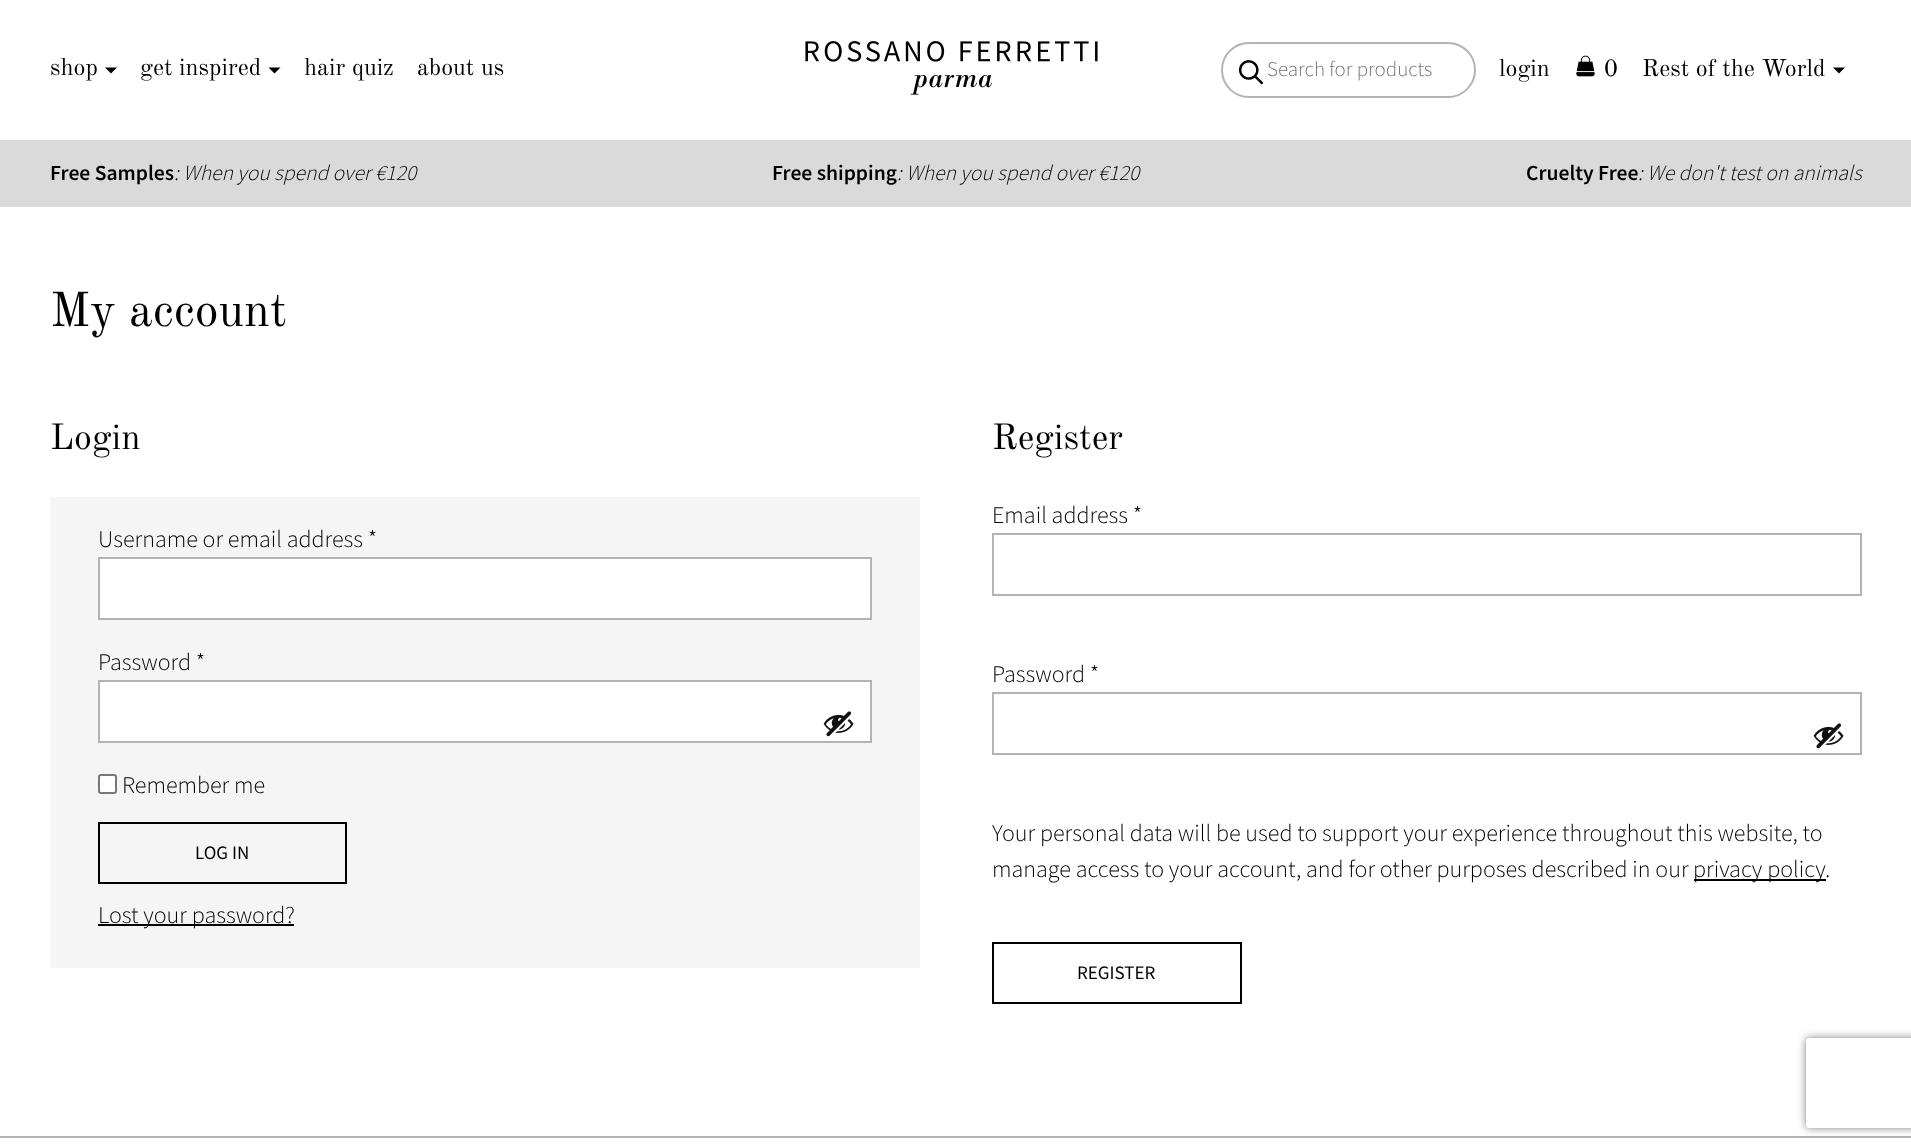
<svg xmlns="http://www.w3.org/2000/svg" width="1911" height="1148">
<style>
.a{font:24px Old Standard TT;fill:#000}
.b{font:300 21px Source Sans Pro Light;fill:#757575}
.c{font:600 21.6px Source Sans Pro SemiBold;fill:#000}
.d{font:italic 300 21.6px Source Sans Pro Light;fill:#000}
.e{font:48px Old Standard TT;fill:#000}
.f{font:36px Old Standard TT;fill:#000}
.g{font:300 24px Source Sans Pro Light;fill:#000}
.h{font:19px Source Sans Pro;fill:#000}
</style>
<defs>
<clipPath id="clip1"><path d="M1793 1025h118v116h-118zm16 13h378c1.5 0 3 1.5 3 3v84c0 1.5-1.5 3-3 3h-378c-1.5 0-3-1.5-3-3v-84c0-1.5 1.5-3 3-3z" clip-rule="evenodd"/></clipPath>
</defs>
<rect width="100%" height="100%" fill="#fff"/>
<path fill="#000" d="M105 67.5h12l-6 6z"/>
<path fill="#000" d="M268.5 67.5h12l-6 6z"/>
<image href="1.png" x="805" y="41" width="293" height="54"/>
<image href="2.png" x="1239" y="60" width="24" height="25"/>
<rect fill="none" stroke="#b3b3b3" stroke-width="2" x="1222" y="43" width="253" height="54" rx="27"/>
<image href="3.png" x="1576" y="55" width="19" height="22"/>
<path fill="#000" d="M1833 67.5h12l-6 6z"/>
<path fill="#dadada" d="M0 140h1911v67H0z"/>
<path fill="#f5f5f5" d="M50 497h870v471H50z"/>
<path fill="#fff" stroke="#b3b3b3" stroke-width="2" d="M99 558h772v61H99z"/>
<path fill="#fff" stroke="#b3b3b3" stroke-width="2" d="M99 681h772v61H99z"/>
<image href="4.png" x="823" y="711" width="31" height="26"/>
<rect fill="#fff" stroke="#767676" stroke-width="2" x="99" y="775" width="17" height="18" rx="2"/>
<path fill="none" stroke="#000" stroke-width="2" d="M99 823h247v60H99z"/>
<path fill="#000" d="M98 924h196v2H98z"/>
<path fill="none" stroke="#b3b3b3" stroke-width="2" d="M993 534h868v61H993z"/>
<path fill="none" stroke="#b3b3b3" stroke-width="2" d="M993 693h868v61H993z"/>
<image href="4.png" x="1813" y="723" width="31" height="26"/>
<path fill="#000" d="M1694 879h132v2H1694z"/>
<path fill="none" stroke="#000" stroke-width="2" d="M993 943h248v60H993z"/>
<path fill="#b3b3b3" d="M0 1136h1911v2H0z"/>
<g clip-path="url(#clip1)">
<rect fill="#808080" filter="blur(4px)" x="1806" y="1038" width="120" height="90" rx="3"/>
</g>
<text class="a" x="50" y="75">shop</text>
<text class="a" x="140" y="75">get inspired</text>
<text class="a" x="304" y="75">hair quiz</text>
<text class="a" x="417" y="75">about us</text>
<text class="b" x="1267" y="76">Search for products</text>
<text class="a" x="1499" y="76">login</text>
<text class="a" x="1604" y="76">0</text>
<text class="a" x="1642" y="76">Rest of the World</text>
<text class="c" x="50" y="180">Free Samples</text>
<text class="d" x="174" y="180">: When you spend over €120</text>
<text class="c" x="772" y="180">Free shipping</text>
<text class="d" x="897" y="180">: When you spend over €120</text>
<text class="c" x="1526" y="180">Cruelty Free</text>
<text class="d" x="1638" y="180">: We don't test on animals</text>
<text class="e" x="50" y="326">My account</text>
<text class="f" x="50" y="449">Login</text>
<text class="g" x="98" y="547">Username or email address *</text>
<text class="g" x="98" y="670">Password *</text>
<text class="g" x="122" y="793">Remember me</text>
<text class="h" x="195" y="859">LOG IN</text>
<text class="g" x="98" y="923">Lost your password?</text>
<text class="f" x="992" y="449">Register</text>
<text class="g" x="992" y="523">Email address *</text>
<text class="g" x="992" y="682">Password *</text>
<text class="g" x="992" y="841">Your personal data will be used to support your experience throughout this website, to</text>
<text class="g" x="992" y="877">manage access to your account, and for other purposes described in our</text>
<text class="g" x="1693" y="877">privacy policy</text>
<text class="g" x="1825" y="877">.</text>
<text class="h" x="1077" y="979">REGISTER</text>
</svg>
